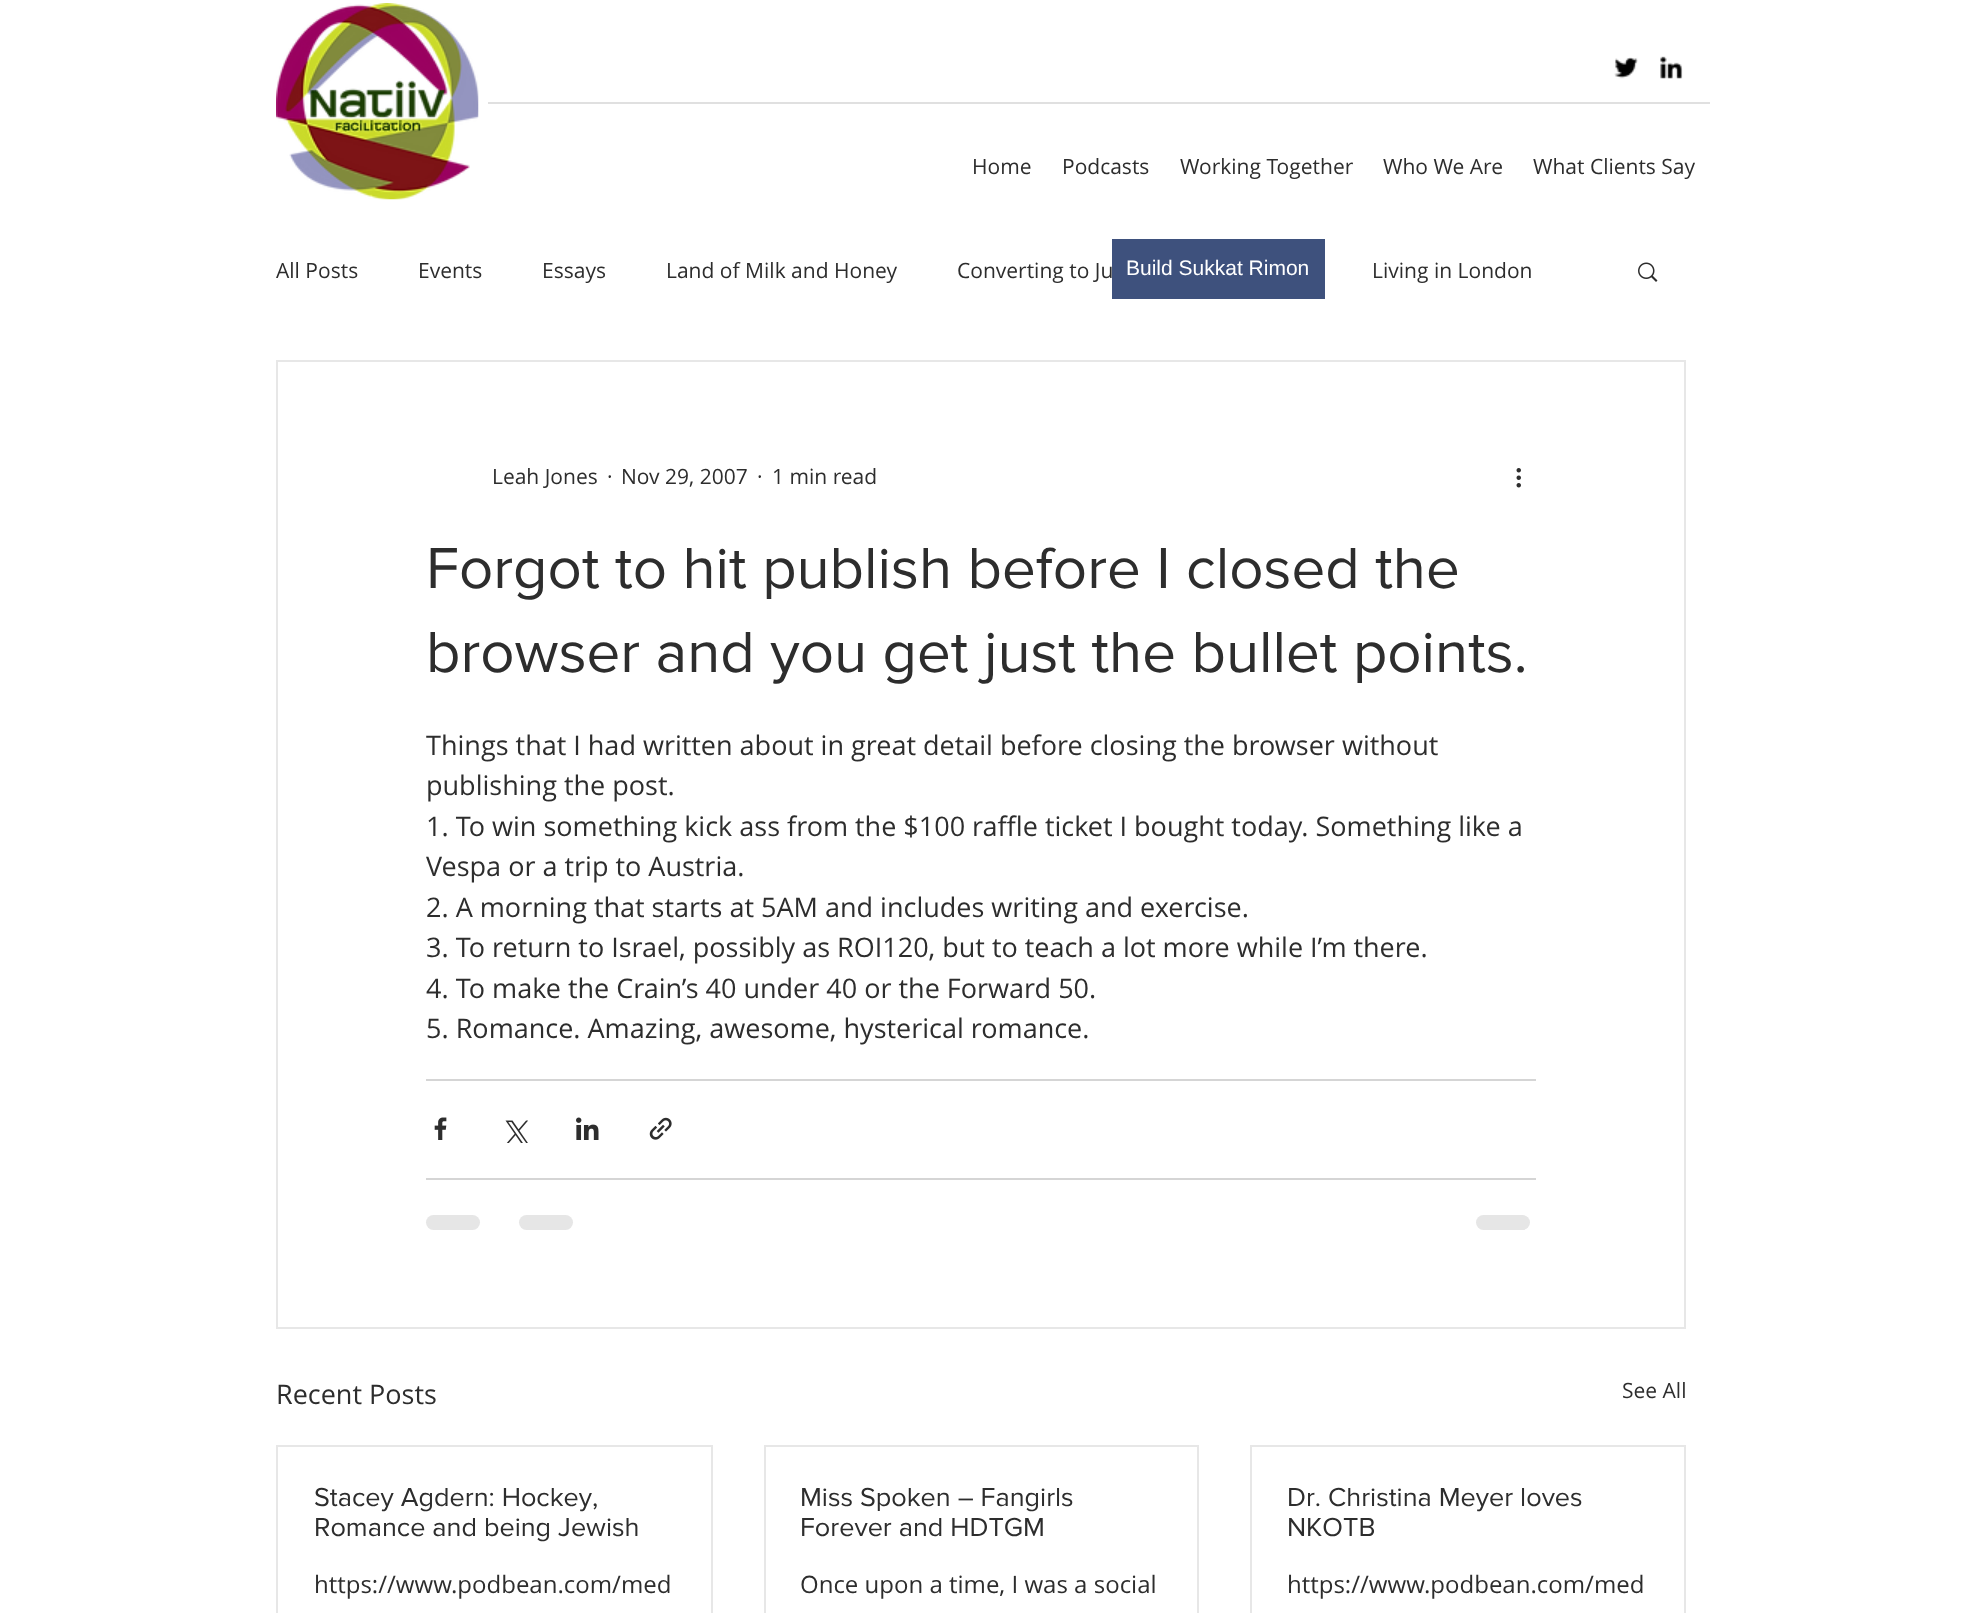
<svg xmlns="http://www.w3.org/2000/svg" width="1961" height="1613">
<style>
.a{font:21px Open Sans;fill:#2d2d2d}
.b{font:21px Liberation Sans;fill:#fff}
.c{font:60px 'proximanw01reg';fill:#2d2d2d}
.d{font:27px Open Sans;fill:#2d2d2d}
.e{font:27px 'proximanw01reg';fill:#2d2d2d}
.f{font:24px Open Sans;fill:#2d2d2d}
</style>
<rect width="100%" height="100%" fill="#fff"/>
<image href="1.png" x="276" y="3" width="203" height="197"/>
<image href="2.png" x="1614" y="57" width="24" height="22"/>
<image href="3.png" x="1660" y="56" width="23" height="23"/>
<path fill="#e0e0e0" d="M488 102h1222v2H488z"/>
<image href="4.png" x="1638" y="262" width="20" height="20"/>
<path fill="none" stroke="#e7e7e7" stroke-width="2" d="M277 361h1408v967H277z"/>
<image href="5.png" x="1516" y="468" width="5" height="20"/>
<path fill="#d5d5d5" d="M426 1079h1110v2H426z"/>
<image href="6.png" x="434" y="1117" width="13" height="23"/>
<image href="7.png" x="505" y="1120" width="23" height="23"/>
<image href="8.png" x="576" y="1117" width="23" height="23"/>
<image href="9.png" x="649" y="1117" width="23" height="23"/>
<path fill="#d5d5d5" d="M426 1178h1110v2H426z"/>
<rect fill="#e6e6e6" x="426" y="1215" width="54" height="15" rx="7.5"/>
<rect fill="#e6e6e6" x="519" y="1215" width="54" height="15" rx="7.5"/>
<rect fill="#e6e6e6" x="1476" y="1215" width="54" height="15" rx="7.5"/>
<path fill="none" stroke="#e7e7e7" stroke-width="2" d="M277 1446h435v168H277z"/>
<path fill="none" stroke="#e7e7e7" stroke-width="2" d="M765 1446h433v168H765z"/>
<path fill="none" stroke="#e7e7e7" stroke-width="2" d="M1251 1446h434v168H1251z"/>
<text class="a" x="972" y="174">Home</text>
<text class="a" x="1062" y="174">Podcasts</text>
<text class="a" x="1180" y="174">Working Together</text>
<text class="a" x="1383" y="174">Who We Are</text>
<text class="a" x="1533" y="174">What Clients Say</text>
<text class="a" x="276" y="278">All Posts</text>
<text class="a" x="418" y="278">Events</text>
<text class="a" x="542" y="278">Essays</text>
<text class="a" x="666" y="278">Land of Milk and Honey</text>
<text class="a" x="957" y="278">Converting to Ju</text>
<path fill="#3e517d" d="M1112 239h213v60H1112z"/>
<text class="b" x="1126" y="275">Build Sukkat Rimon</text>
<text class="a" x="1372" y="278">Living in London</text>
<text class="a" x="492" y="484">Leah Jones</text>
<text class="a" x="607" y="484">·</text>
<text class="a" x="621" y="484">Nov 29, 2007</text>
<text class="a" x="757" y="484">·</text>
<text class="a" x="772" y="484">1 min read</text>
<text class="c" x="426" y="588">Forgot to hit publish before I closed the</text>
<text class="c" x="426" y="672">browser and you get just the bullet points.</text>
<text class="d" x="426" y="755">Things that I had written about in great detail before closing the browser without</text>
<text class="d" x="426" y="795">publishing the post.</text>
<text class="d" x="426" y="836">1. To win something kick ass from the $100 raffle ticket I bought today. Something like a</text>
<text class="d" x="426" y="876">Vespa or a trip to Austria.</text>
<text class="d" x="426" y="917">2. A morning that starts at 5AM and includes writing and exercise.</text>
<text class="d" x="426" y="957">3. To return to Israel, possibly as ROI120, but to teach a lot more while I’m there.</text>
<text class="d" x="426" y="998">4. To make the Crain’s 40 under 40 or the Forward 50.</text>
<text class="d" x="426" y="1038">5. Romance. Amazing, awesome, hysterical romance.</text>
<text class="d" x="276" y="1404">Recent Posts</text>
<text class="a" x="1622" y="1398">See All</text>
<text class="e" x="314" y="1506">Stacey Agdern: Hockey,</text>
<text class="e" x="314" y="1536">Romance and being Jewish</text>
<text class="f" x="314" y="1593">https://www.podbean.com/med</text>
<text class="e" x="800" y="1506">Miss Spoken – Fangirls</text>
<text class="e" x="800" y="1536">Forever and HDTGM</text>
<text class="f" x="800" y="1593">Once upon a time, I was a social</text>
<text class="e" x="1287" y="1506">Dr. Christina Meyer loves</text>
<text class="e" x="1287" y="1536">NKOTB</text>
<text class="f" x="1287" y="1593">https://www.podbean.com/med</text>
</svg>
